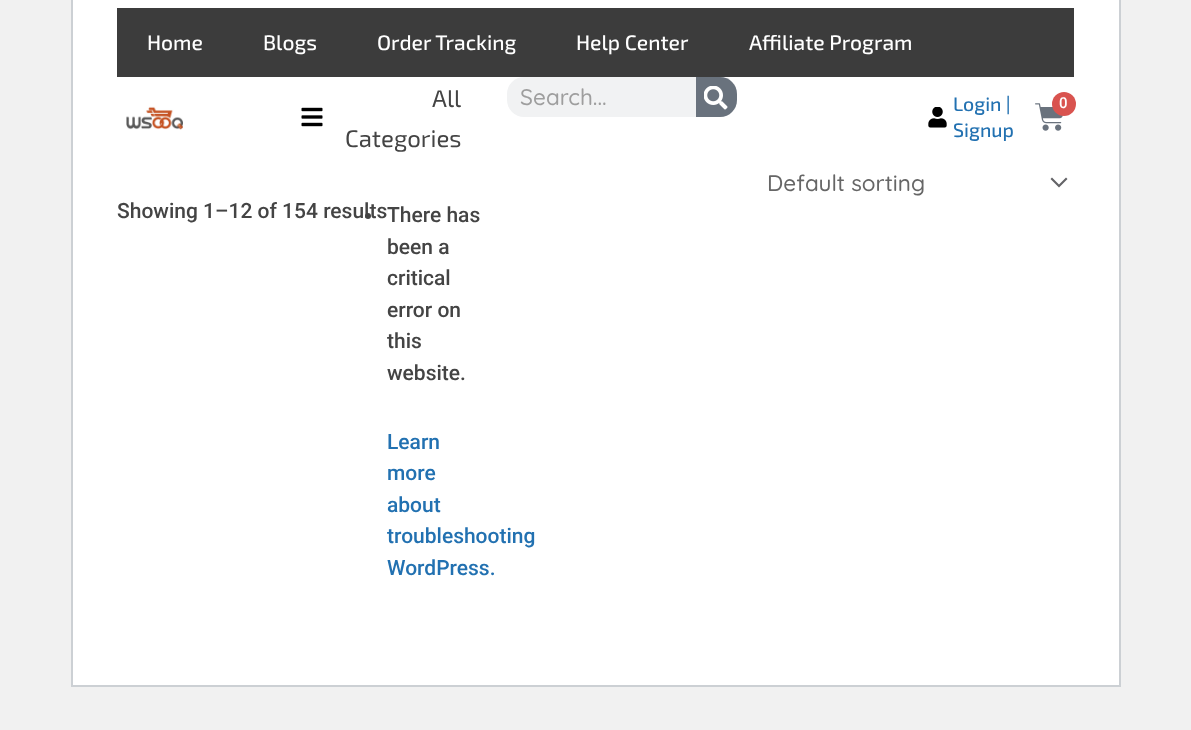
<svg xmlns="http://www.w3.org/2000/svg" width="1191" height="730">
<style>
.a{font:500 21px 'Exo 2';fill:#fff}
.b{font:24px 'Exo 2';fill:#444}
.c{font:500 22.5px Quicksand;fill:#9e9e9e}
.d{font:500 19.5px 'Exo 2';fill:#2271b1}
.e{font:500 15px Roboto;fill:#fff}
.f{font:500 22.5px Quicksand;fill:#666}
.g{font:500 21px Roboto;fill:#444}
.h{font:500 21px Roboto;fill:#2271b1}
</style>
<rect width="100%" height="100%" fill="#f1f1f1"/>
<path fill="#fff" stroke="#ccd0d4" stroke-width="2" d="M72 -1h1048v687H72z"/>
<path fill="#3c3c3c" d="M117 8h957v69H117z"/>
<image href="1.png" x="301" y="107" width="22" height="20"/>
<rect fill="#f1f2f3" x="507" y="77" width="230" height="40" rx="17"/>
<path fill="#69727d" d="M696 77h24c9.5 0 17 7.5 17 17v6c0 9.5-7.5 17-17 17h-24z"/>
<image href="2.png" x="704" y="86" width="24" height="24"/>
<image href="3.png" x="928" y="107" width="19" height="21"/>
<image href="4.png" x="1035" y="103" width="28" height="28"/>
<circle fill="#d9534f" cx="1064" cy="104" r="12"/>
<image href="5.png" x="126" y="106" width="57" height="24"/>
<path fill="#646467" d="M1050.5 179l8.5 8.5l8.5-8.5l-1.5-1.5l-7 7l-7-7z"/>
<circle fill="#444" cx="368" cy="216" r="3"/>
<text class="a" x="147" y="50">Home</text>
<text class="a" x="263" y="50">Blogs</text>
<text class="a" x="377" y="50">Order Tracking</text>
<text class="a" x="576" y="50">Help Center</text>
<text class="a" x="749" y="50">Affiliate Program</text>
<text class="b" x="432" y="107">All</text>
<text class="b" x="345" y="147">Categories</text>
<text class="c" x="520" y="105">Search...</text>
<text class="d" x="953" y="111">Login |</text>
<text class="d" x="953" y="137">Signup</text>
<text class="e" x="1059" y="108">0</text>
<text class="f" x="767" y="191">Default sorting</text>
<text class="g" x="117" y="218">Showing 1–12 of 154 results</text>
<text class="g" x="387" y="222">There has</text>
<text class="g" x="387" y="254">been a</text>
<text class="g" x="387" y="285">critical</text>
<text class="g" x="387" y="317">error on</text>
<text class="g" x="387" y="348">this</text>
<text class="g" x="387" y="380">website.</text>
<text class="h" x="387" y="449">Learn</text>
<text class="h" x="387" y="480">more</text>
<text class="h" x="387" y="512">about</text>
<text class="h" x="387" y="543">troubleshooting</text>
<text class="h" x="387" y="575">WordPress.</text>
</svg>
